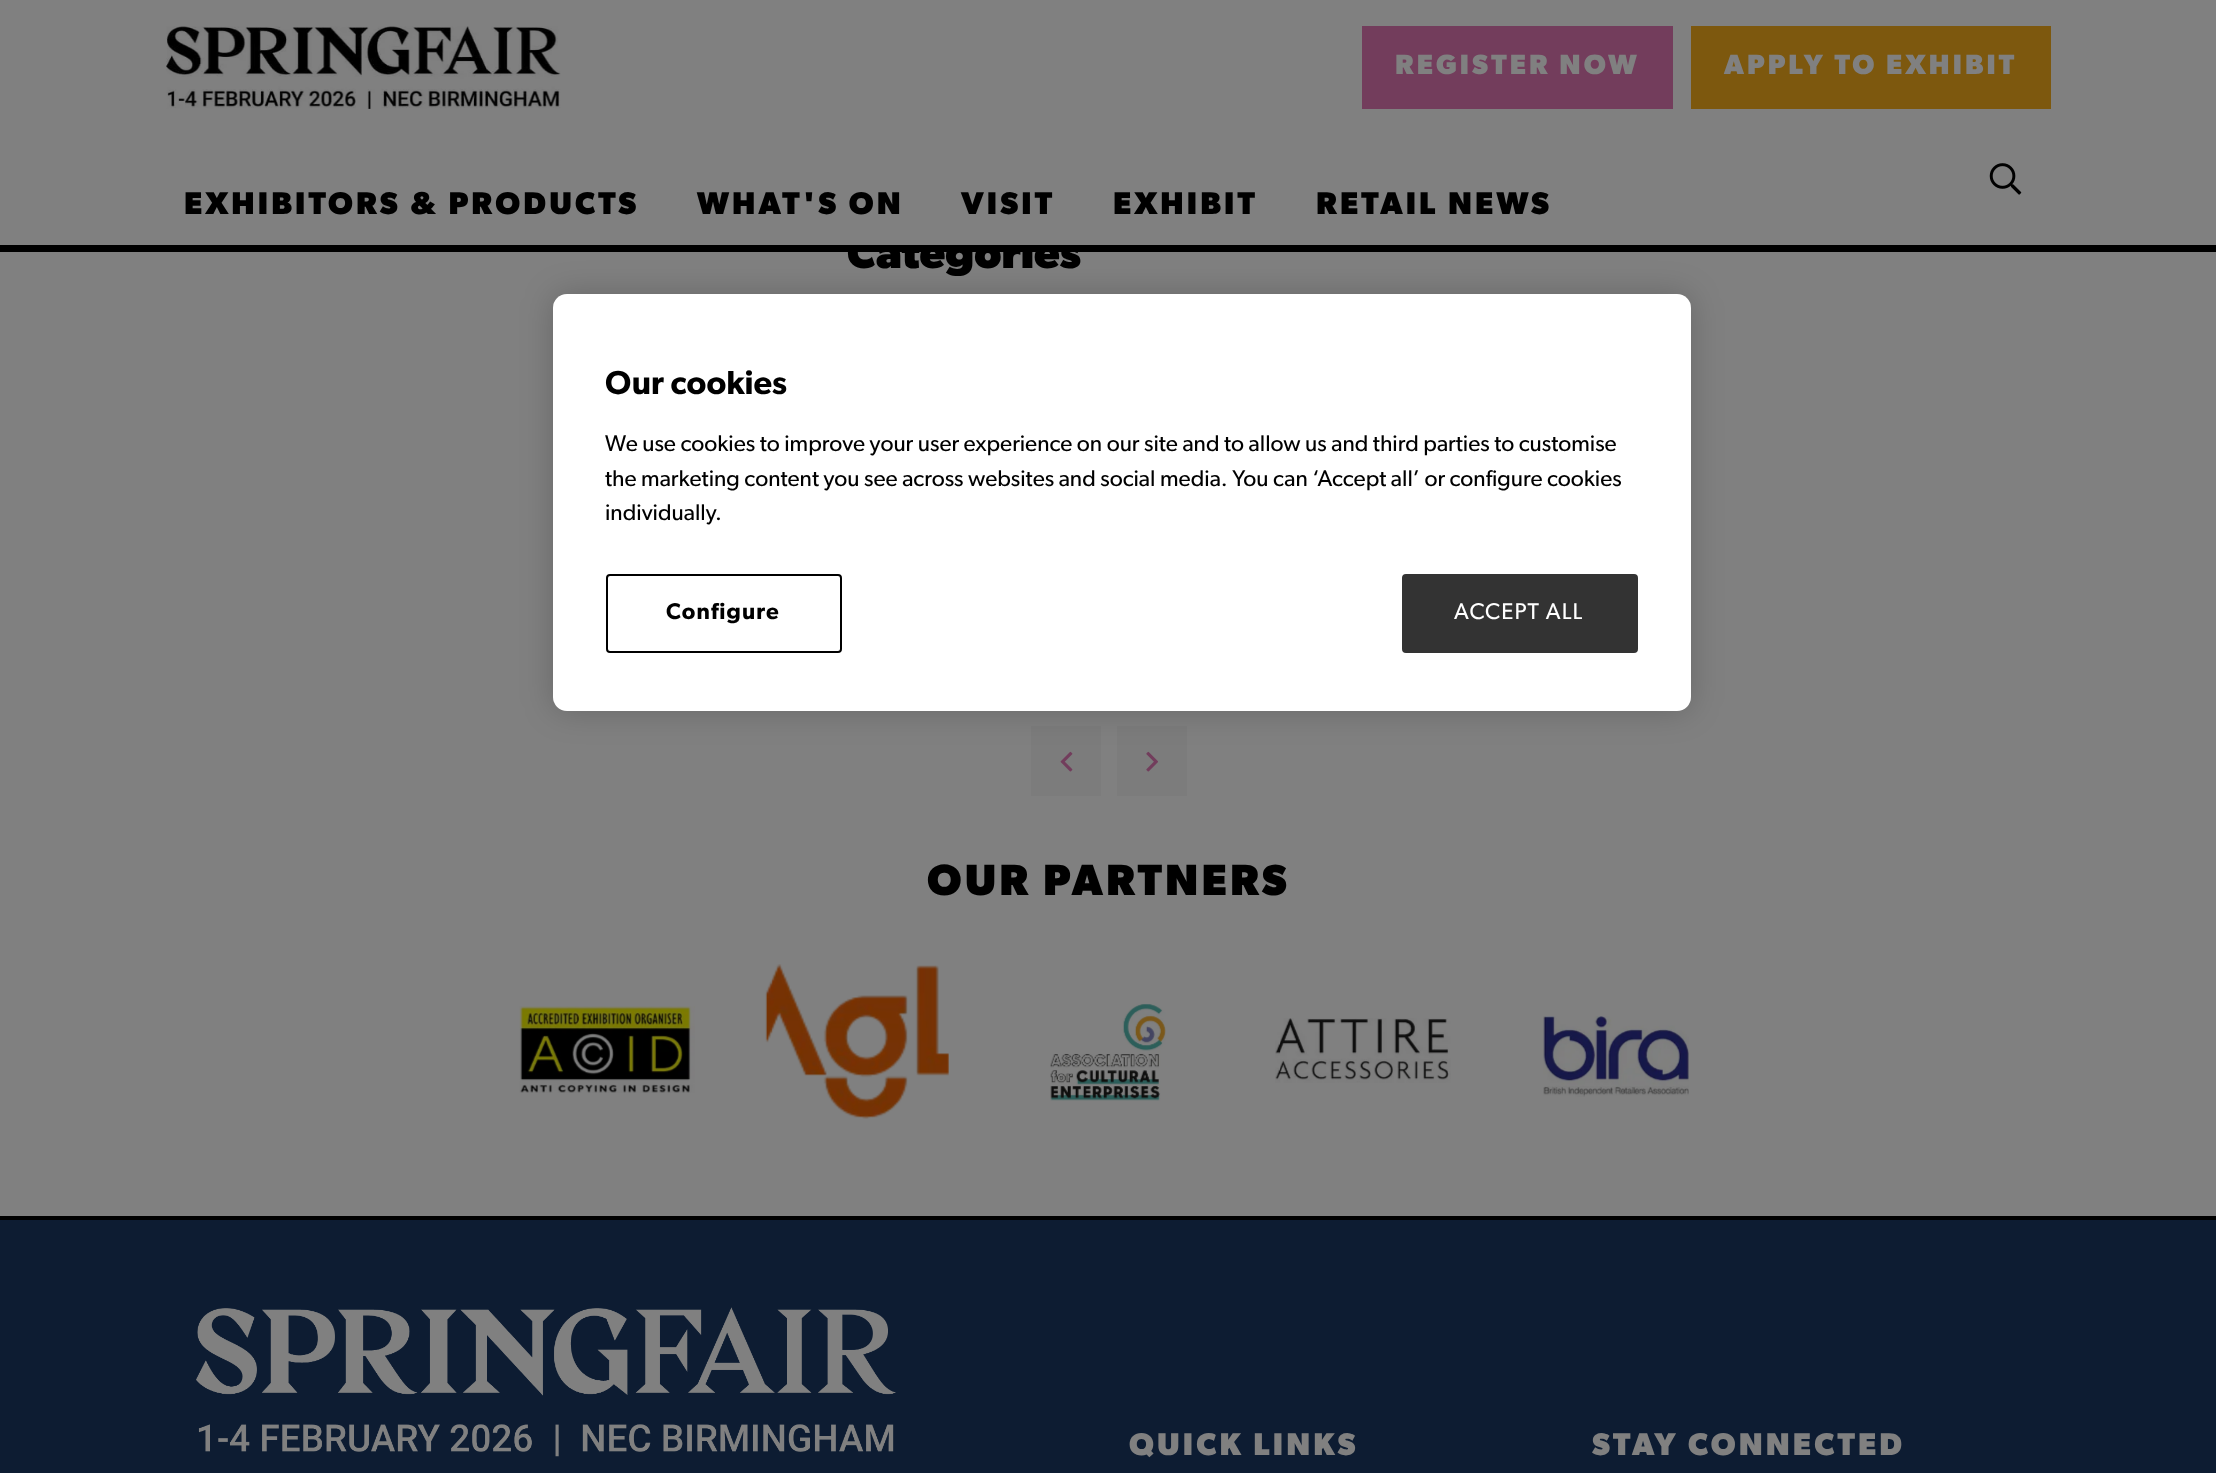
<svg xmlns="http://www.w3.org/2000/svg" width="2216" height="1473">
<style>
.a{font:bold 28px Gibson;letter-spacing:3.15px;fill:#808080}
.b{font:bold 31.5px Gibson;letter-spacing:3.15px;fill:#000}
.c{font:bold 43.75px Gibson;fill:#000}
.d{font:bold 43.75px Gibson;letter-spacing:3.15px;fill:#000}
.e{font:bold 31.5px Gibson;letter-spacing:3.15px;fill:#808080}
.f{font:600 33.25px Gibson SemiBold;fill:#000}
.g{font:22.75px Gibson;fill:#000}
.h{font:600 22.75px Gibson SemiBold;letter-spacing:1.1px;fill:#000}
.i{font:22.75px Gibson;letter-spacing:1.1px;fill:#fff}
</style>
<rect width="100%" height="100%" fill="#808080"/>
<path fill="#000" d="M0 245h2216v7H0z"/>
<image href="1.png" x="166" y="26" width="395" height="83"/>
<path fill="#733d5c" d="M1362 26h311v83H1362z"/>
<path fill="#7d580e" d="M1691 26h360v83H1691z"/>
<image href="2.png" x="1989" y="163" width="33" height="32"/>
<path fill="#7c7c7c" d="M1031 726h70v70H1031z"/>
<image href="3.png" x="1060" y="751" width="13" height="21"/>
<path fill="#7c7c7c" d="M1117 726h70v70H1117z"/>
<image href="4.png" x="1146" y="751" width="12" height="21"/>
<image href="5.png" x="519" y="1006" width="176" height="87"/>
<image href="6.png" x="765" y="964" width="184" height="155"/>
<image href="7.png" x="1050" y="1003" width="116" height="98"/>
<image href="8.png" x="1275" y="1018" width="176" height="65"/>
<image href="9.png" x="1543" y="1016" width="146" height="81"/>
<path fill="#0d1c32" d="M0 1220h2216v253H0z"/>
<path fill="#000" d="M0 1216h2216v4H0z"/>
<image href="10.png" x="196" y="1307" width="700" height="150"/>
<rect fill="#00000033" filter="blur(16px)" x="553" y="294" width="1138" height="417" rx="14"/>
<rect fill="#fff" x="553" y="294" width="1138" height="417" rx="14"/>
<rect fill="none" stroke="#000" stroke-width="2" x="607" y="575" width="234" height="77" rx="3"/>
<rect fill="#333" stroke="#333" stroke-width="2" x="1403" y="575" width="234" height="77" rx="3"/>
<text class="a" x="1395" y="74">REGISTER NOW</text>
<text class="a" x="1724" y="74">APPLY TO EXHIBIT</text>
<text class="b" x="184" y="214">EXHIBITORS &amp; PRODUCTS</text>
<text class="b" x="697" y="214">WHAT'S ON</text>
<text class="b" x="961" y="214">VISIT</text>
<text class="b" x="1113" y="214">EXHIBIT</text>
<text class="b" x="1316" y="214">RETAIL NEWS</text>
<text class="c" x="847" y="268">Categories</text>
<path fill="#808080" d="M849 235h184v10H849z"/>
<text class="d" x="927" y="895">OUR PARTNERS</text>
<text class="e" x="1129" y="1455">QUICK LINKS</text>
<text class="e" x="1592" y="1455">STAY CONNECTED</text>
<text class="f" x="605" y="394">Our cookies</text>
<text class="g" x="605" y="451">We use cookies to improve your user experience on our site and to allow us and third parties to customise</text>
<text class="g" x="605" y="486">the marketing content you see across websites and social media. You can ‘Accept all’ or configure cookies</text>
<text class="g" x="605" y="520">individually.</text>
<text class="h" x="666" y="619">Configure</text>
<text class="i" x="1454" y="619">ACCEPT ALL</text>
</svg>
